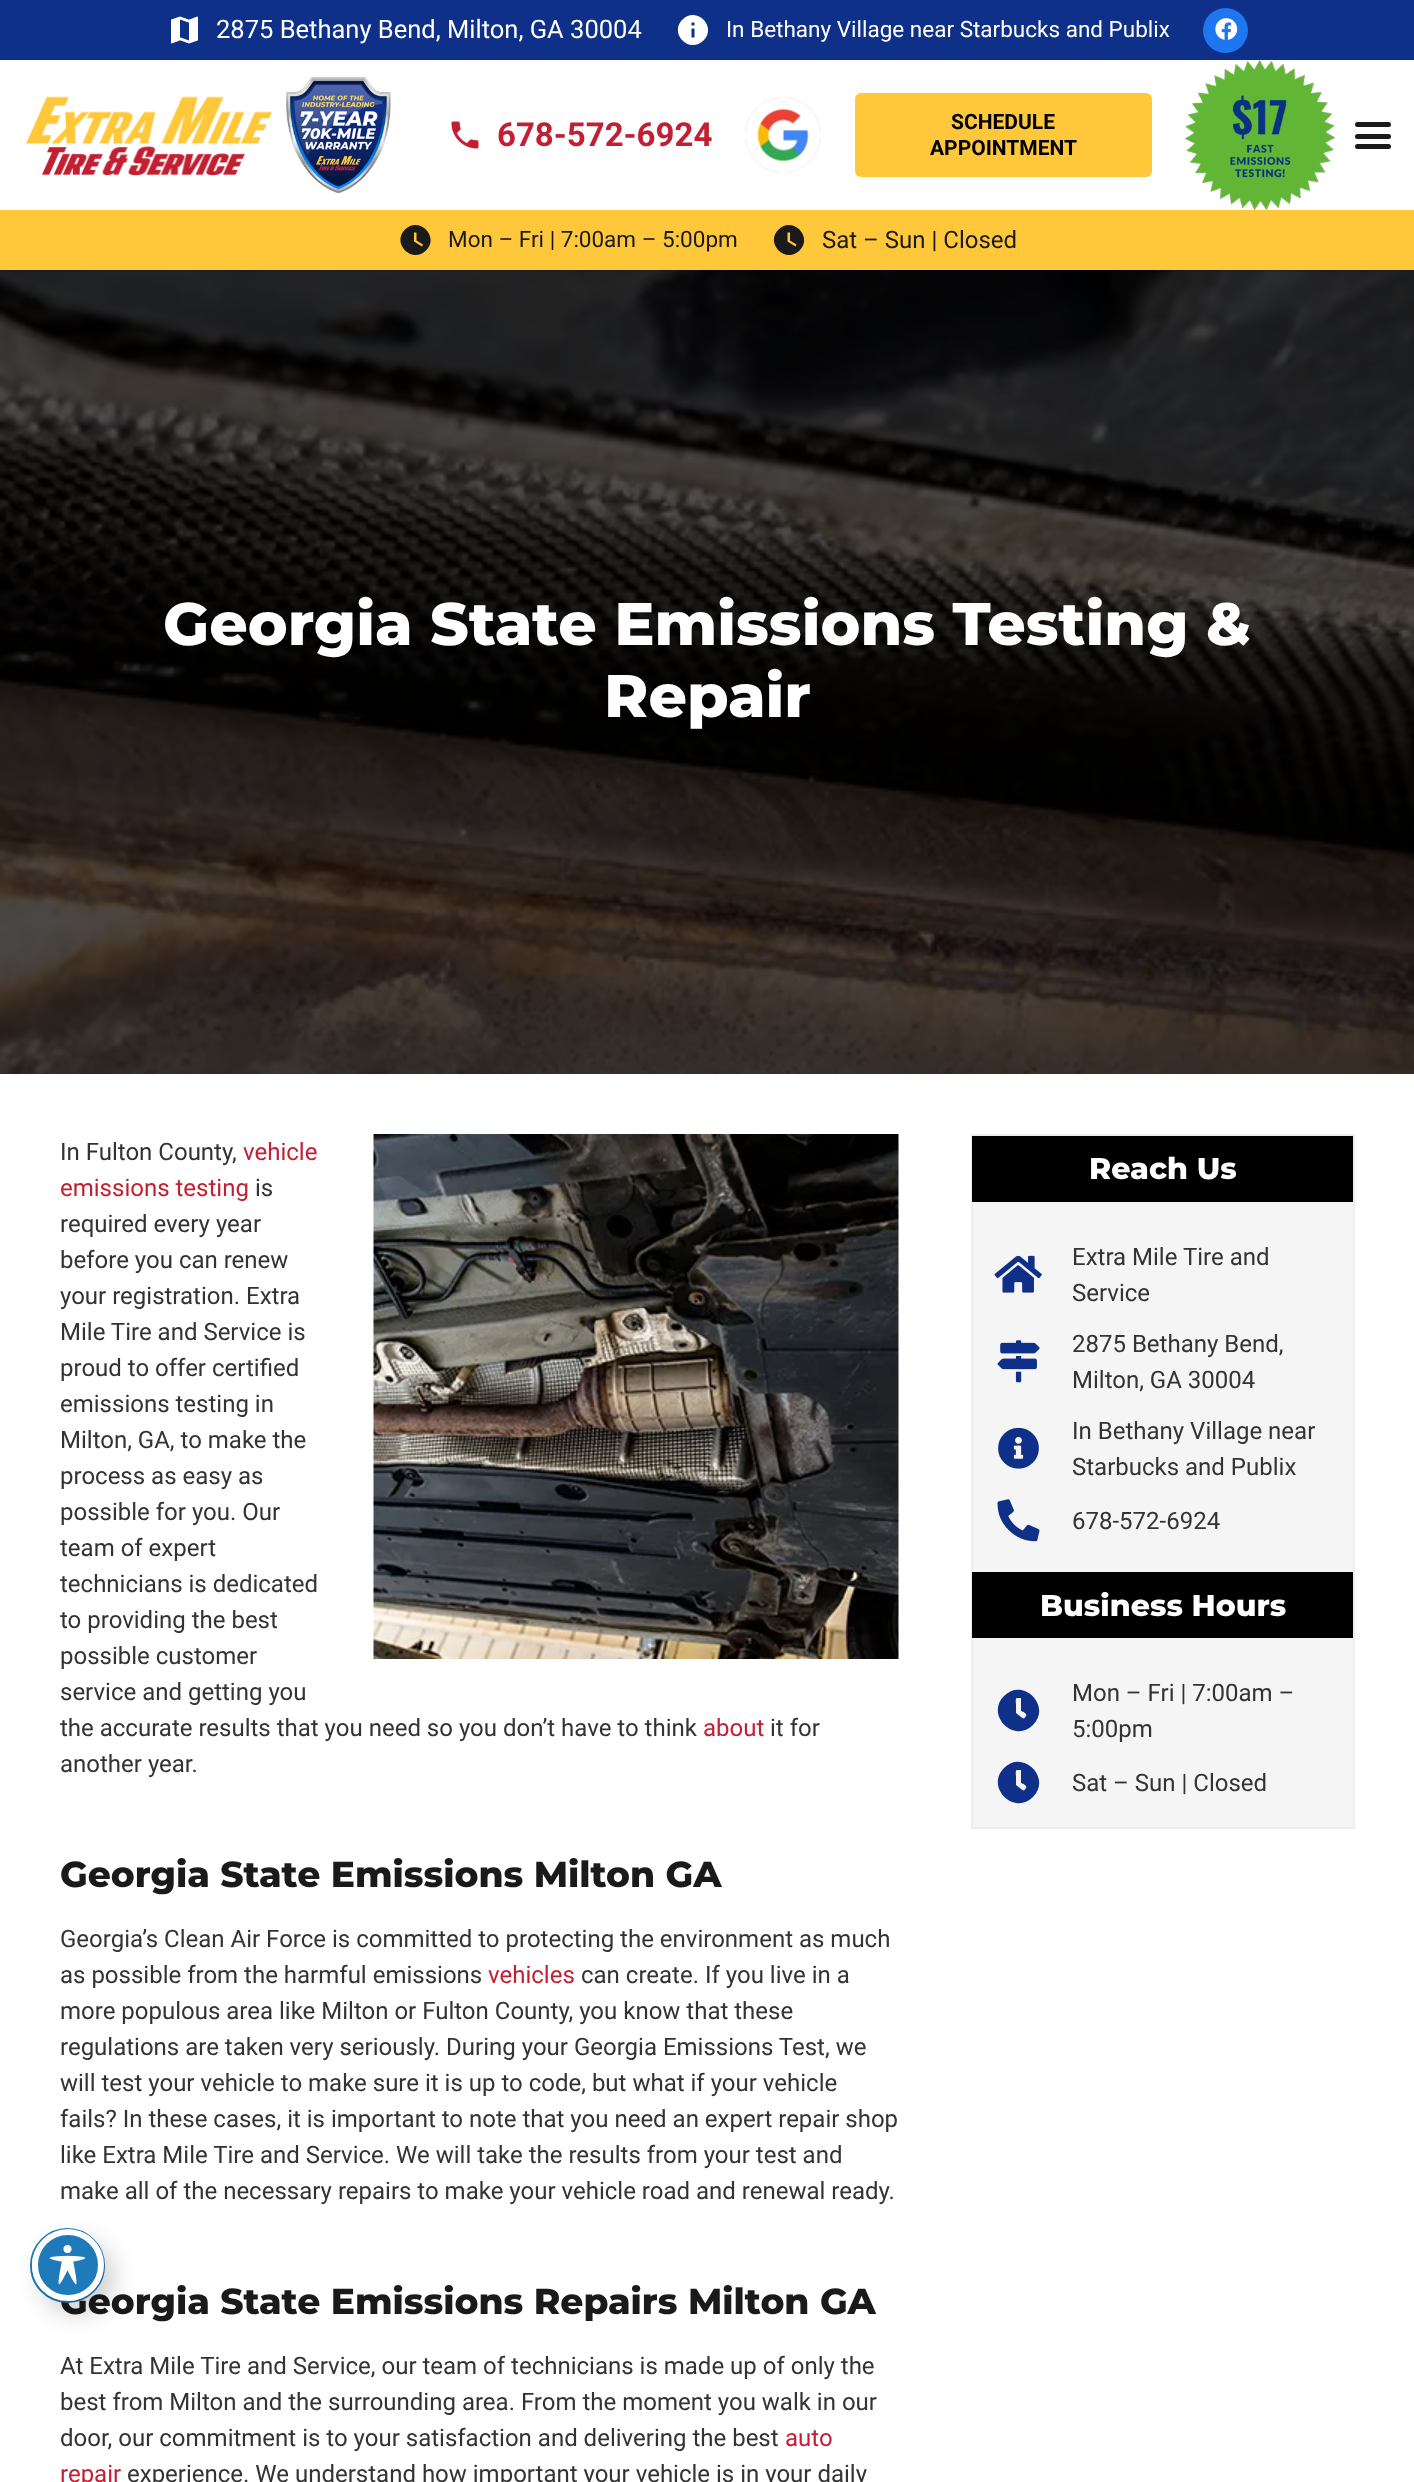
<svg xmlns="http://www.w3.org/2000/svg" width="1414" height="2482">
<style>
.a{font:25.5px Roboto;fill:#fff}
.b{font:22.5px Roboto;fill:#fff}
.c{font:bold 33px Roboto;fill:#c21f33}
.d{font:bold 21px Roboto;fill:#000}
.e{font:22.5px Roboto;fill:#1a1a1a}
.f{font:24px Roboto;fill:#1a1a1a}
.g{font:100 60px Montserrat;fill:#fff}
.h{font:24px Roboto;fill:#333}
.i{font:24px Roboto;fill:#c21f33}
.j{font:100 36px Montserrat;fill:#1a1a1a}
.k{font:100 30px Montserrat;fill:#fff}
</style>
<rect width="100%" height="100%" fill="#fff"/>
<path fill="#0f3088" d="M0 0h1414v60H0z"/>
<image href="1.png" x="171" y="16" width="27" height="28"/>
<path fill="#fff" d="M694.5 25.5v-3h-3v3zm0 12v-9h-3v9zm-12-18c14-14 35 7 21 21c-14 14-35-7-21-21z"/>
<circle fill="#1e77f0" cx="1225.5" cy="30.5" r="22.5"/>
<image href="2.png" x="1215" y="18" width="23" height="22"/>
<image href="3.png" x="26" y="96" width="247" height="80"/>
<image href="4.png" x="286" y="77" width="105" height="116"/>
<image href="5.png" x="451" y="121" width="28" height="28"/>
<image href="6.png" x="745" y="97" width="76" height="76"/>
<rect fill="#ffc83b" x="855" y="93" width="297" height="84" rx="6"/>
<image href="7.png" x="1185" y="60" width="150" height="150"/>
<rect fill="#1a1a1a" x="1355" y="134" width="36" height="5" rx="2.5"/>
<rect fill="#1a1a1a" x="1355" y="122" width="36" height="5" rx="2.5"/>
<rect fill="#1a1a1a" x="1355" y="144" width="36" height="5" rx="2.5"/>
<image href="8.png" x="0" y="270" width="1414" height="804"/>
<path fill="#00000014" d="M0 270v2h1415v-60h-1v58z"/>
<path fill="#ffc83b" d="M0 210h1414v60H0z"/>
<path fill="#1a1a1a" d="M422 246.5l1-2l-6.5-4v-8h-2.5v9zm-17-17c14-14 35 7 21 21c-14 14-35-7-21-21z"/>
<path fill="#1a1a1a" d="M795.5 246.5l1-2l-6.5-4v-8h-2.5v9zm-17-17c14-14 35 7 21 21c-14 14-35-7-21-21z"/>
<image href="9.png" x="373" y="1134" width="526" height="525"/>
<path fill="#f5f5f5" d="M973 1202h380v625H973z"/>
<path fill="none" stroke="#ededed" stroke-width="2" d="M972 1135h382v693H972z"/>
<path fill="#000" d="M972 1136h381v66H972z"/>
<image href="10.png" x="994" y="1255" width="48" height="38"/>
<image href="11.png" x="997" y="1340" width="43" height="43"/>
<image href="12.png" x="998" y="1427" width="41" height="42"/>
<image href="13.png" x="997" y="1499" width="43" height="43"/>
<path fill="#000" d="M972 1572h381v66H972z"/>
<path fill="#0f3088" d="M1004 1696c19-19 48 10 29 29c-19 19-48-10-29-29zm22 20c2-2-4-5-5-5v-13h-4c-2 0-1 6-1 7v8l5 4c3 2 3 2 5-1z"/>
<path fill="#0f3088" d="M1004 1768c19-19 48 10 29 29c-19 19-48-10-29-29zm22 20c2-2-4-5-5-5v-13h-4c-2 0-1 6-1 7v8l5 4c3 2 3 2 5-1z"/>
<text class="a" x="216" y="38">2875 Bethany Bend, Milton, GA 30004</text>
<text class="b" x="726" y="37">In Bethany Village near Starbucks and Publix</text>
<text class="c" x="497" y="146">678-572-6924</text>
<text class="d" x="951" y="129">SCHEDULE</text>
<text class="d" x="930" y="155">APPOINTMENT</text>
<text class="e" x="448" y="247">Mon – Fri | 7:00am – 5:00pm</text>
<text class="f" x="822" y="248">Sat – Sun | Closed</text>
<text class="g" x="163" y="645">Georgia State Emissions Testing &amp;</text>
<text class="g" x="604" y="717">Repair</text>
<text class="h" x="60" y="1160">In Fulton County,</text>
<text class="i" x="243" y="1160">vehicle</text>
<text class="i" x="60" y="1196">emissions testing</text>
<text class="h" x="255" y="1196">is</text>
<text class="h" x="60" y="1232">required every year</text>
<text class="h" x="60" y="1268">before you can renew</text>
<text class="h" x="60" y="1304">your registration. Extra</text>
<text class="h" x="60" y="1340">Mile Tire and Service is</text>
<text class="h" x="60" y="1376">proud to offer certified</text>
<text class="h" x="60" y="1412">emissions testing in</text>
<text class="h" x="60" y="1448">Milton, GA, to make the</text>
<text class="h" x="60" y="1484">process as easy as</text>
<text class="h" x="60" y="1520">possible for you. Our</text>
<text class="h" x="60" y="1556">team of expert</text>
<text class="h" x="60" y="1592">technicians is dedicated</text>
<text class="h" x="60" y="1628">to providing the best</text>
<text class="h" x="60" y="1664">possible customer</text>
<text class="h" x="60" y="1700">service and getting you</text>
<text class="h" x="60" y="1736">the accurate results that you need so you don’t have to think</text>
<text class="i" x="703" y="1736">about</text>
<text class="h" x="770" y="1736">it for</text>
<text class="h" x="60" y="1772">another year.</text>
<text class="j" x="60" y="1887">Georgia State Emissions Milton GA</text>
<text class="h" x="60" y="1947">Georgia’s Clean Air Force is committed to protecting the environment as much</text>
<text class="h" x="60" y="1983">as possible from the harmful emissions</text>
<text class="i" x="488" y="1983">vehicles</text>
<text class="h" x="581" y="1983">can create. If you live in a</text>
<text class="h" x="60" y="2019">more populous area like Milton or Fulton County, you know that these</text>
<text class="h" x="60" y="2055">regulations are taken very seriously. During your Georgia Emissions Test, we</text>
<text class="h" x="60" y="2091">will test your vehicle to make sure it is up to code, but what if your vehicle</text>
<text class="h" x="60" y="2127">fails? In these cases, it is important to note that you need an expert repair shop</text>
<text class="h" x="60" y="2163">like Extra Mile Tire and Service. We will take the results from your test and</text>
<text class="h" x="60" y="2199">make all of the necessary repairs to make your vehicle road and renewal ready.</text>
<text class="j" x="60" y="2314">Georgia State Emissions Repairs Milton GA</text>
<text class="h" x="60" y="2374">At Extra Mile Tire and Service, our team of technicians is made up of only the</text>
<text class="h" x="60" y="2410">best from Milton and the surrounding area. From the moment you walk in our</text>
<text class="h" x="60" y="2446">door, our commitment is to your satisfaction and delivering the best</text>
<text class="i" x="785" y="2446">auto</text>
<text class="i" x="60" y="2482">repair</text>
<text class="h" x="127" y="2482">experience. We understand how important your vehicle is in your daily</text>
<text class="k" x="1089" y="1179">Reach Us</text>
<text class="h" x="1072" y="1265">Extra Mile Tire and</text>
<text class="h" x="1072" y="1301">Service</text>
<text class="h" x="1072" y="1352">2875 Bethany Bend,</text>
<text class="h" x="1072" y="1388">Milton, GA 30004</text>
<text class="h" x="1072" y="1439">In Bethany Village near</text>
<text class="h" x="1072" y="1475">Starbucks and Publix</text>
<text class="h" x="1072" y="1529">678-572-6924</text>
<text class="k" x="1040" y="1616">Business Hours</text>
<text class="h" x="1072" y="1701">Mon – Fri | 7:00am –</text>
<text class="h" x="1072" y="1737">5:00pm</text>
<text class="h" x="1072" y="1791">Sat – Sun | Closed</text>
<circle fill="none" stroke="#1e7ab9" stroke-width="2" cx="67.5" cy="2265.5" r="36.5"/>
<rect fill="#00000033" filter="blur(12px)" x="41" y="2241" width="72" height="72" rx="36"/>
<circle fill="#1e7ab9" stroke="#fff" stroke-width="6" cx="68" cy="2265" r="33"/>
<image href="14.png" x="49" y="2245" width="37" height="40"/>
</svg>
